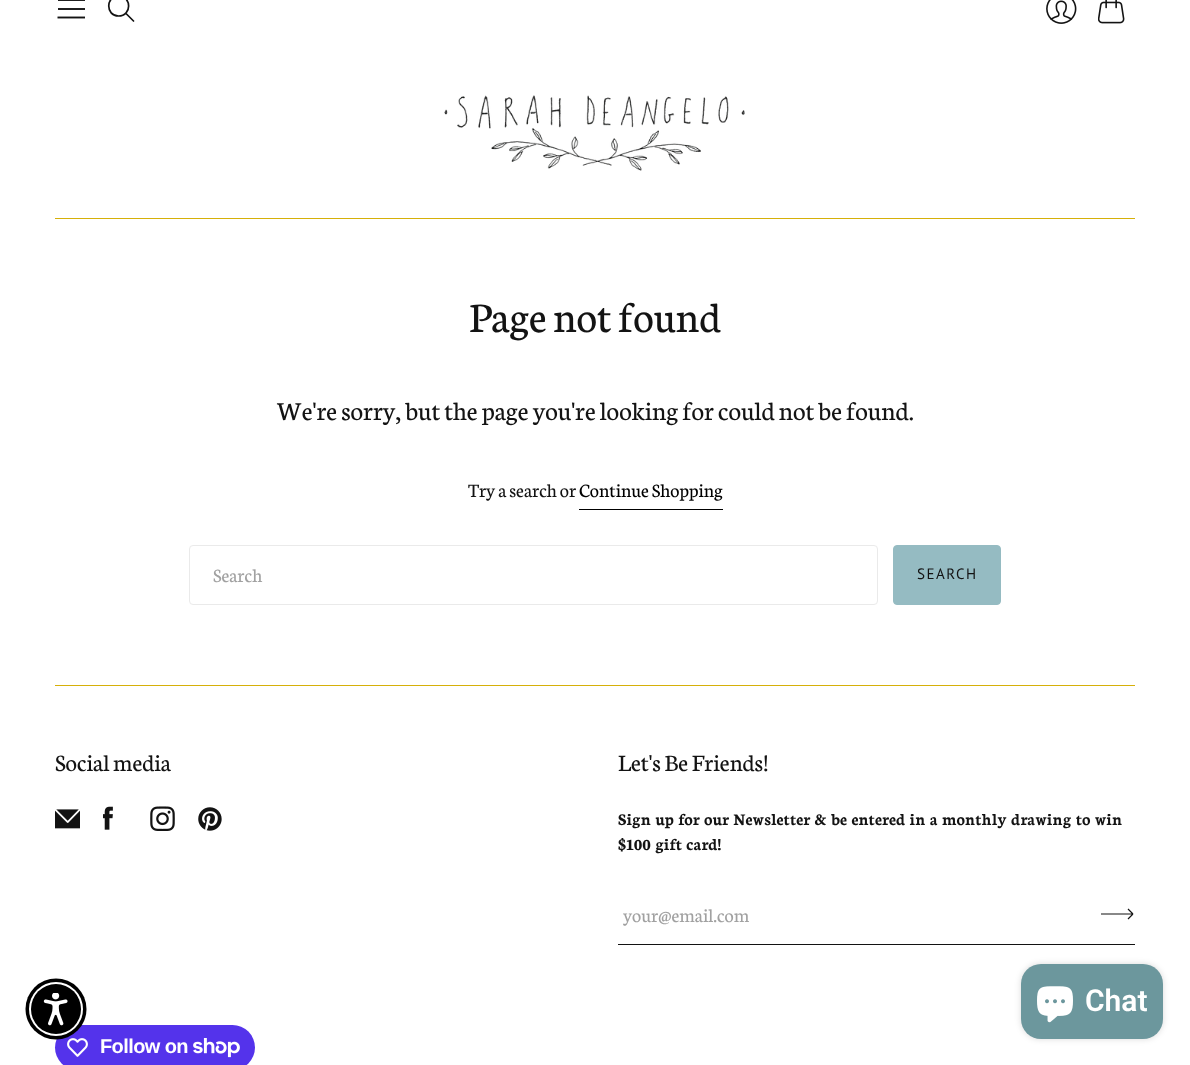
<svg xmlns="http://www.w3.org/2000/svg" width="1190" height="1065">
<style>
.a{font:45px Neuton;fill:#131313}
.b{font:27.5px Neuton;fill:#131313}
.c{font:20px Neuton;fill:#131313}
.d{font:20px Neuton;fill:#000}
.e{font:20px Neuton;fill:#a1a1a1}
.f{font:15px PT Sans;letter-spacing:1.5px;fill:#131313}
.g{font:25px Neuton;fill:#131313}
.h{font:bold 17.5px Neuton;fill:#131313}
.i{font:bold 20px Liberation Sans;letter-spacing:-0.6px;fill:#fff}
.j{font:600 30px Roboto;fill:#fff}
</style>
<defs>
<clipPath id="clip1"><path d="M623 901h433v25H623z"/></clipPath>
</defs>
<rect width="100%" height="100%" fill="#fff"/>
<path fill="#1f1f1f" d="M58 0h27v1H58z"/>
<path fill="#1f1f1f" d="M58 8h27v2H58z"/>
<path fill="none" stroke="#131313" stroke-width="1.9" d="M57.5 17.5h27.5"/>
<path fill="none" stroke="#131313" stroke-width="1.7" stroke-linecap="round" stroke-linejoin="round" d="M118.5 16c13.5 0 13.5-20 0-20c-13 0-13 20 0 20zm15 5l-7.5-7.5"/>
<image href="1.png" x="1046" y="0" width="31" height="24"/>
<image href="2.png" x="1098" y="0" width="27" height="24"/>
<path fill="#d6b009" d="M55 218h1080v1H55z"/>
<image href="3.png" x="444" y="95" width="301" height="76"/>
<path fill="#000" d="M579 509h144v1H579z"/>
<rect fill="none" stroke="#eaeaea" x="189.5" y="545.5" width="688" height="59" rx="3.5"/>
<rect fill="#95bbc2" stroke="#95bbc2" x="893.5" y="545.5" width="107" height="59" rx="3.5"/>
<path fill="#d6b009" d="M55 685h1080v1H55z"/>
<image href="4.png" x="55" y="809" width="25" height="20"/>
<image href="5.png" x="103" y="806" width="10" height="24"/>
<image href="6.png" x="150" y="806" width="25" height="25"/>
<image href="7.png" x="198" y="807" width="24" height="24"/>
<path fill="#131313" d="M618 944h517v1H618z"/>
<path fill="none" stroke="#131313" stroke-width="1.2" d="M1101 914h32m0 0l-5-5m5 5l-5 5"/>
<rect fill="#5433eb" x="55" y="1025" width="200" height="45" rx="22.5"/>
<image href="8.png" x="67" y="1038" width="21" height="19"/>
<image href="9.png" x="193" y="1038" width="47" height="20"/>
<circle fill="#000" cx="56" cy="1009" r="30.5"/>
<circle fill="#fff" cx="56" cy="1009" r="27"/>
<circle fill="#000" cx="56" cy="1009" r="25"/>
<image href="10.png" x="43" y="993" width="25" height="33"/>
<rect fill="#00000026" filter="blur(3px)" x="1021" y="964" width="142" height="75" rx="20"/>
<rect fill="#6c979d" x="1021" y="964" width="142" height="75" rx="20"/>
<image href="11.png" x="1037" y="986" width="36" height="37"/>
<text class="a" x="469" y="332">Page not found</text>
<text class="b" x="277" y="420">We're sorry, but the page you're looking for could not be found.</text>
<text class="c" x="468" y="497">Try a search or</text>
<text class="d" x="579" y="497">Continue Shopping</text>
<text class="e" x="213" y="582">Search</text>
<text class="f" x="917" y="579">SEARCH</text>
<text class="g" x="55" y="771">Social media</text>
<text class="g" x="618" y="771">Let's Be Friends!</text>
<text class="h" x="618" y="825">Sign up for our Newsletter &amp; be entered in a monthly drawing to win</text>
<text class="h" x="618" y="850">$100 gift card!</text>
<g clip-path="url(#clip1)">
<text class="e" x="623" y="922">your@email.com</text>
</g>
<text class="i" x="100" y="1053">Follow on</text>
<text class="j" x="1085" y="1011">Chat</text>
</svg>
